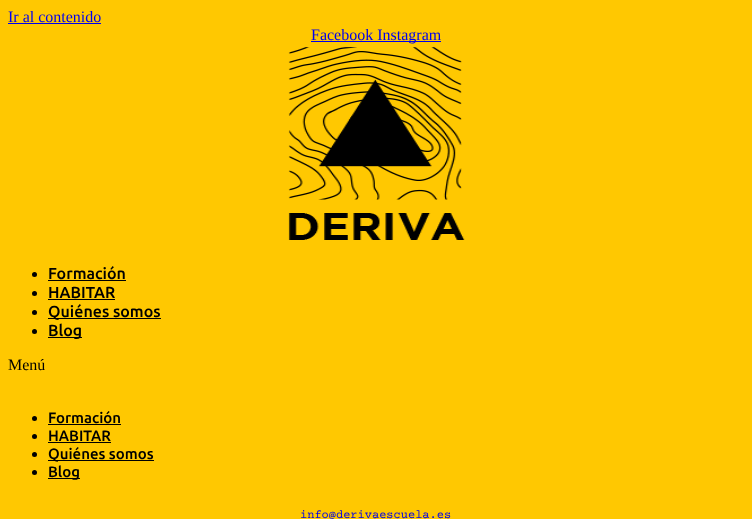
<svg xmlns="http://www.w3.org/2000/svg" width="752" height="519">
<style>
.a{font:16px Liberation Serif;fill:#00e}
.b{font:500 16px Ubuntu;fill:#000}
.c{font:16px Liberation Serif;fill:#000}
.d{font:500 15px Ubuntu;fill:#000}
.e{font:12px Courier Prime;fill:#00e}
</style>
<rect width="100%" height="100%" fill="#ffc801"/>
<path fill="#00e" d="M8 23h93v1H8z"/>
<path fill="#00e" d="M311 41h130v1H311z"/>
<image href="1.png" x="288" y="47" width="177" height="193"/>
<circle fill="#000" cx="34.5" cy="274.5" r="2.5"/>
<path fill="#000" d="M48 280h78v1H48z"/>
<circle fill="#000" cx="34.5" cy="293.5" r="2.5"/>
<path fill="#000" d="M48 299h67v1H48z"/>
<circle fill="#000" cx="34.5" cy="312.5" r="2.5"/>
<path fill="#000" d="M48 318h113v1H48z"/>
<circle fill="#000" cx="34.5" cy="331.5" r="2.5"/>
<path fill="#000" d="M48 337h34v1H48z"/>
<circle fill="#000" cx="34.5" cy="418.5" r="2.5"/>
<path fill="#000" d="M48 424h73v1H48z"/>
<circle fill="#000" cx="34.5" cy="436.5" r="2.5"/>
<path fill="#000" d="M48 442h63v1H48z"/>
<circle fill="#000" cx="34.5" cy="454.5" r="2.5"/>
<path fill="#000" d="M48 460h106v1H48z"/>
<circle fill="#000" cx="34.5" cy="472.5" r="2.5"/>
<path fill="#000" d="M48 478h32v1H48z"/>
<text class="a" x="8" y="22">Ir al contenido</text>
<text class="a" x="311" y="40">Facebook Instagram</text>
<text class="b" x="48" y="279">Formación</text>
<text class="b" x="48" y="298">HABITAR</text>
<text class="b" x="48" y="317">Quiénes somos</text>
<text class="b" x="48" y="336">Blog</text>
<text class="c" x="8" y="370">Menú</text>
<text class="d" x="48" y="423">Formación</text>
<text class="d" x="48" y="441">HABITAR</text>
<text class="d" x="48" y="459">Quiénes somos</text>
<text class="d" x="48" y="477">Blog</text>
<text class="e" x="300" y="518">info@derivaescuela.es</text>
</svg>
